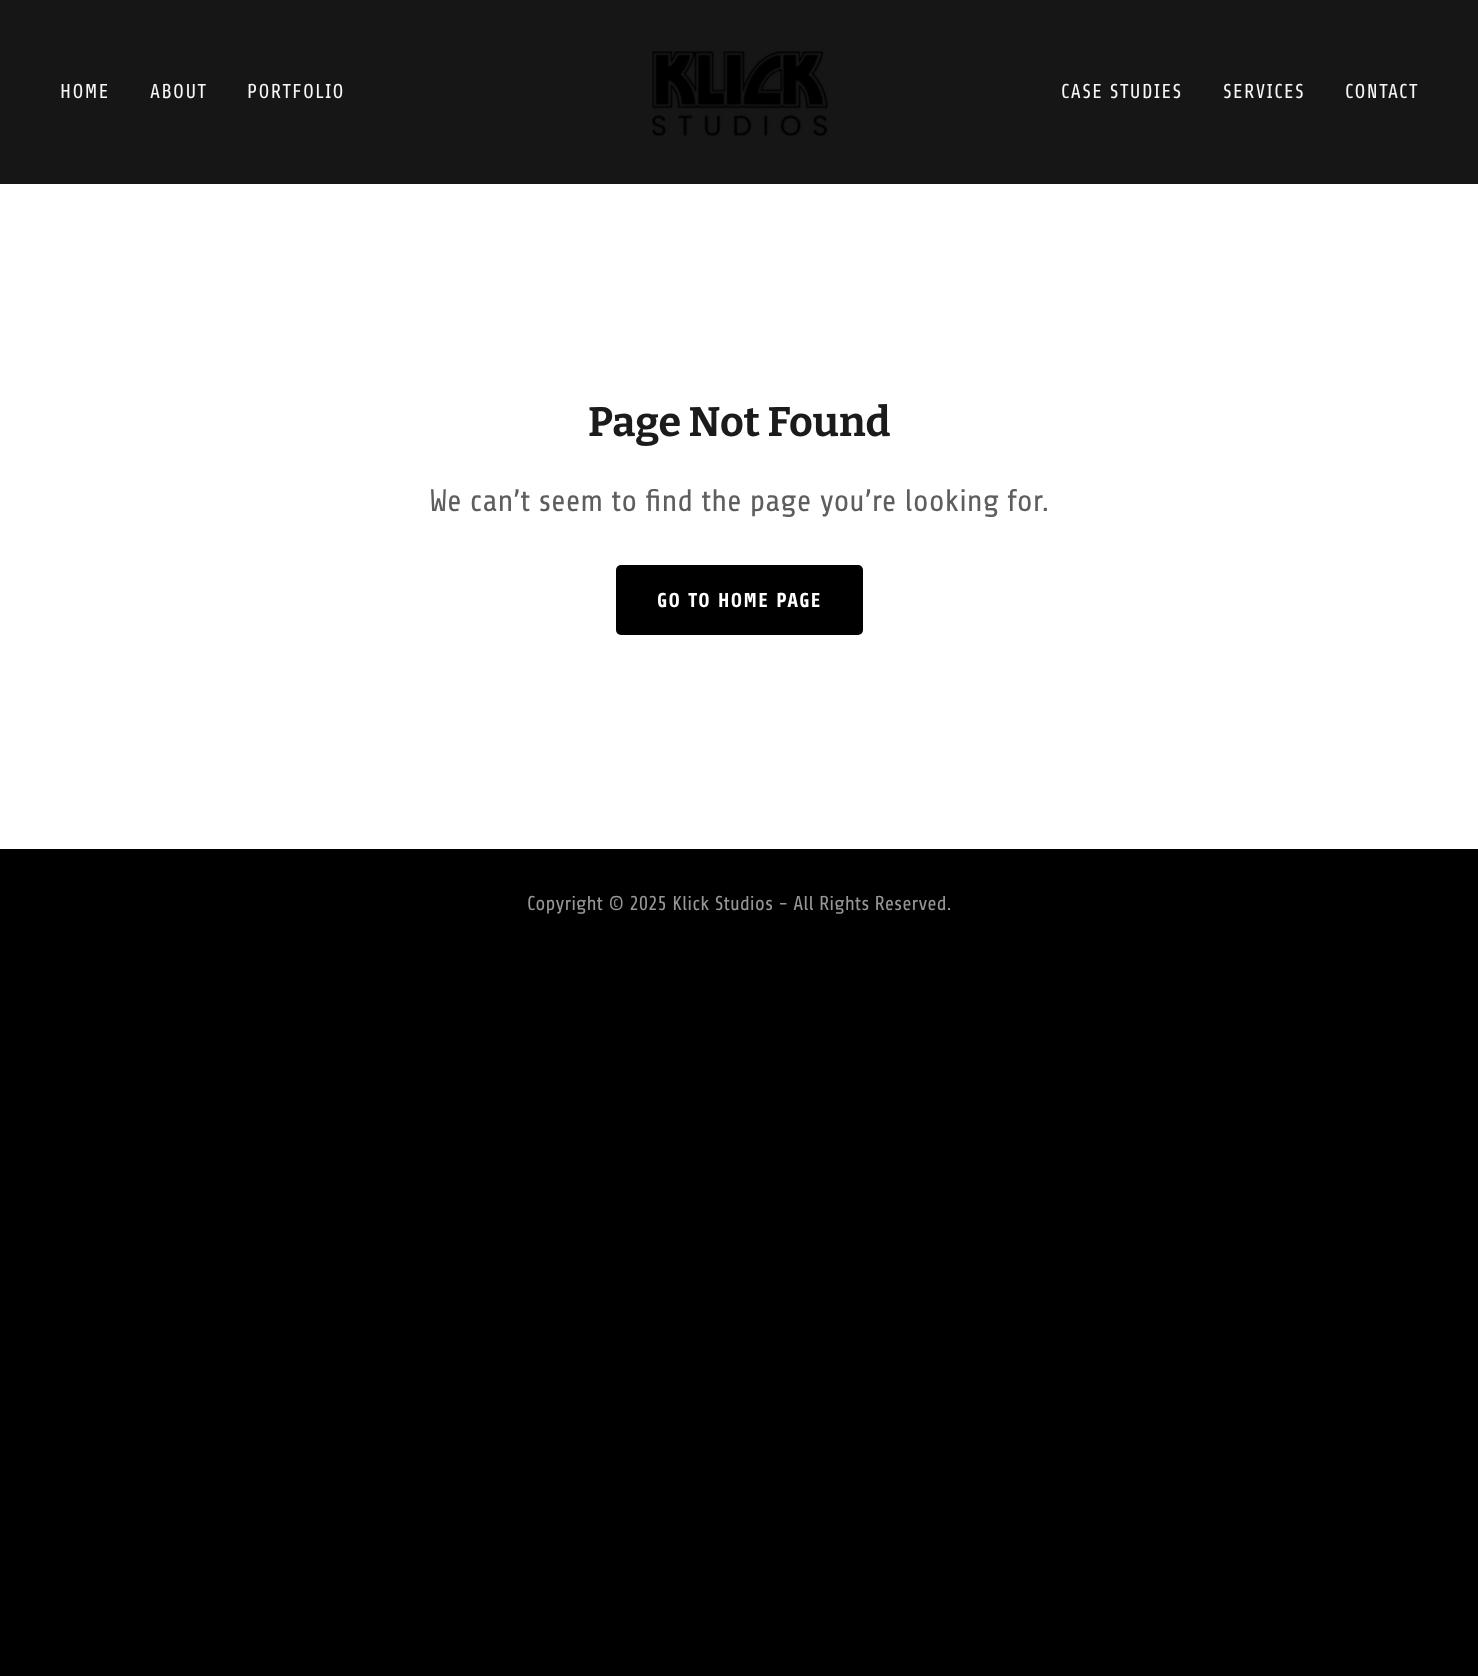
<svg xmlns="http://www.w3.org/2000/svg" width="1478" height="1676">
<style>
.a{font:20px Share;letter-spacing:1.4px;fill:#f7f7f7}
.b{font:100 41.25px Bitter;fill:#1b1b1b}
.c{font:31.25px Share;fill:#5e5e5e}
.d{font:bold 20px Share;letter-spacing:1.4px;fill:#fff}
.e{font:20px Share;fill:#969696}
</style>
<rect width="100%" height="100%" fill="#000"/>
<path fill="#161616" d="M0 0h1478v184H0z"/>
<image href="1.png" x="652" y="51" width="176" height="85"/>
<path fill="#fff" d="M0 184h1478v665H0z"/>
<rect fill="#000" x="616" y="565" width="247" height="70" rx="5"/>
<text class="a" x="60" y="98">HOME</text>
<text class="a" x="150" y="98">ABOUT</text>
<text class="a" x="247" y="98">PORTFOLIO</text>
<text class="a" x="1061" y="98">CASE STUDIES</text>
<text class="a" x="1223" y="98">SERVICES</text>
<text class="a" x="1345" y="98">CONTACT</text>
<text class="b" x="588" y="436">Page Not Found</text>
<text class="c" x="429" y="511">We can’t seem to find the page you’re looking for.</text>
<text class="d" x="657" y="607">GO TO HOME PAGE</text>
<text class="e" x="527" y="910">Copyright © 2025 Klick Studios - All Rights Reserved.</text>
</svg>
